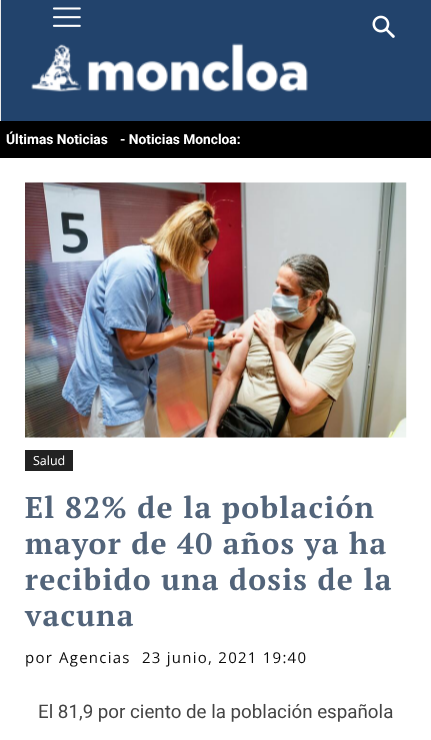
<svg xmlns="http://www.w3.org/2000/svg" width="431" height="740">
<style>
.a{font:bold 13.75px Roboto;fill:#fff}
.b{font:12.5px Open Sans;fill:#fff}
.c{font:bold 30px PT Serif;letter-spacing:1.25px;fill:#52647a}
.d{font:15px Open Sans;letter-spacing:1.25px;fill:#0a0a0a}
.e{font:18.75px Roboto;fill:#444}
</style>
<defs>
<clipPath id="clip1"><path d="M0 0h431v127h-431zm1 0h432v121h-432z" clip-rule="evenodd"/></clipPath>
</defs>
<rect width="100%" height="100%" fill="#fff"/>
<path fill="#22436c" d="M1 0h430v121H1z"/>
<image href="1.png" x="52" y="7" width="29" height="20"/>
<image href="3.png" x="31" y="43" width="277" height="49"/>
<path fill="#000" d="M0 121h431v37H0z"/>
<g clip-path="url(#clip1)">
<path fill="#00000014" filter="blur(0.5px)" d="M0 0h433v124H0z"/>
</g>
<image href="2.png" x="372" y="15" width="23" height="23"/>
<image href="4.png" x="25" y="182" width="382" height="256"/>
<path fill="#222" d="M25 450h48v21H25z"/>
<text class="a" x="6" y="144">Últimas Noticias</text>
<text class="a" x="120" y="144">- Noticias Moncloa:</text>
<text class="b" x="33" y="465">Salud</text>
<text class="c" x="25" y="518">El 82% de la población</text>
<text class="c" x="25" y="554">mayor de 40 años ya ha</text>
<text class="c" x="25" y="590">recibido una dosis de la</text>
<text class="c" x="25" y="626">vacuna</text>
<text class="d" x="25" y="663">por</text>
<text class="d" x="59" y="663">Agencias</text>
<text class="d" x="142" y="663">23 junio, 2021 19:40</text>
<text class="e" x="38" y="718">El 81,9 por ciento de la población española</text>
</svg>
